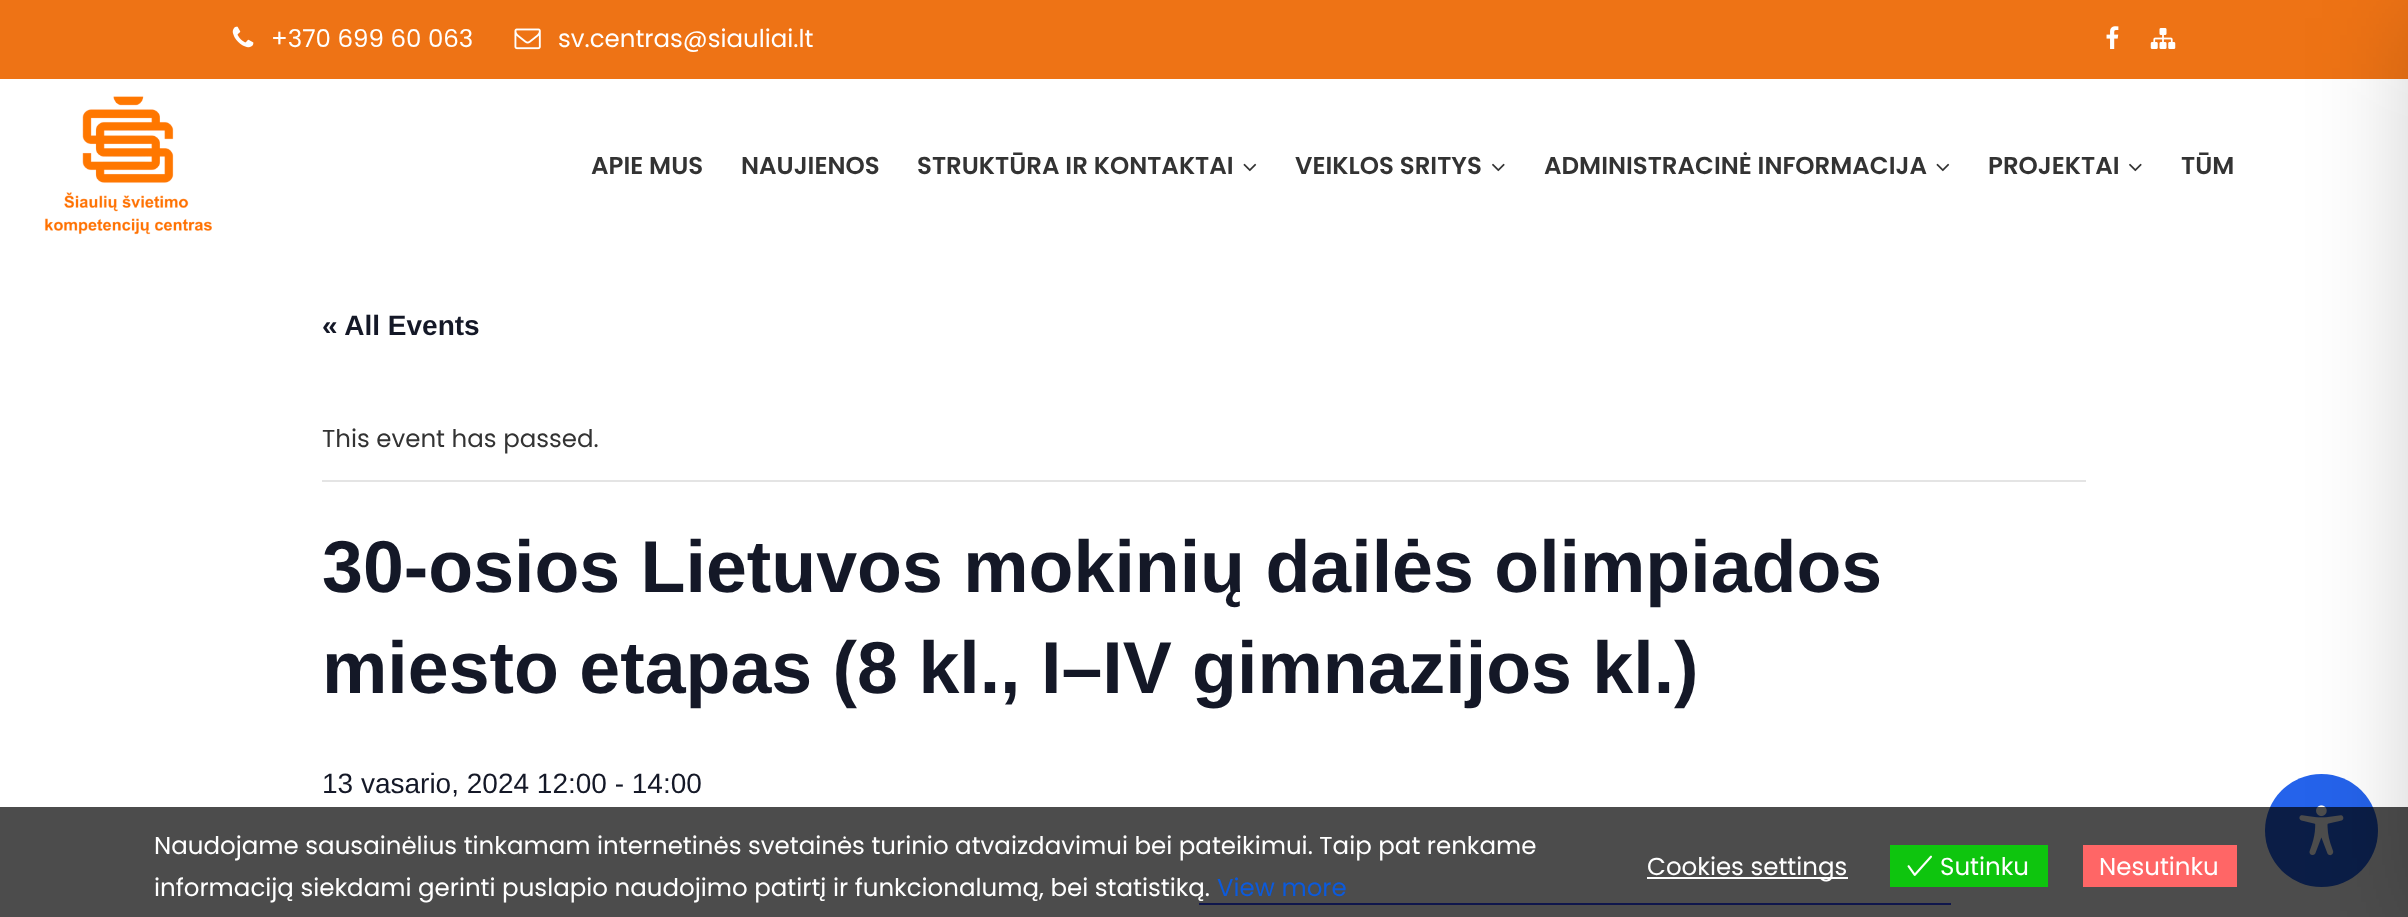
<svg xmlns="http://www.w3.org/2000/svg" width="2408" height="917">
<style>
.a{font:24.5px Poppins;fill:#fff}
.b{font:600 24.5px Poppins;fill:#333}
.c{font:bold 28px Liberation Sans;fill:#141827}
.d{font:24.5px Poppins;fill:#333}
.e{font:bold 73.5px Liberation Sans;fill:#141827}
.f{font:28px Liberation Sans;fill:#141827}
.g{font:24.5px Poppins;fill:#0c5adb}
</style>
<rect width="100%" height="100%" fill="#fff"/>
<path fill="#ee7315" d="M0 0h2408v79H0z"/>
<image href="1.png" x="232" y="26" width="22" height="22"/>
<image href="2.png" x="514" y="28" width="27" height="22"/>
<image href="3.png" x="2106" y="26" width="13" height="23"/>
<image href="4.png" x="2150" y="28" width="26" height="21"/>
<image href="5.png" x="44" y="96" width="168" height="139"/>
<image href="6.png" x="1243" y="163" width="14" height="9"/>
<image href="7.png" x="1492" y="163" width="13" height="9"/>
<image href="6.png" x="1936" y="163" width="14" height="9"/>
<image href="7.png" x="2129" y="163" width="13" height="9"/>
<path fill="#e4e4e4" d="M322 480h1764v2H322z"/>
<path fill="#334aff" d="M1199 903h752v2H1199z"/>
<circle fill="#2563eb" cx="2321.5" cy="830.5" r="56.5"/>
<image href="9.png" x="2299" y="805" width="45" height="51"/>
<path fill="#00000033" filter="blur(52.5px)" d="M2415 18h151v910H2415z"/>
<path fill="#000000b3" d="M0 807h2408v110H0z"/>
<path fill="#fff" d="M1647 877h201v2H1647z"/>
<path fill="#0ec50e" d="M1890 845h158v42H1890z"/>
<image href="8.png" x="1907" y="855" width="25" height="21"/>
<path fill="#f66" d="M2083 845h154v42H2083z"/>
<text class="a" x="271" y="47">+370 699 60 063</text>
<text class="a" x="558" y="47">sv.centras@siauliai.lt</text>
<text class="b" x="591" y="174">APIE MUS</text>
<text class="b" x="741" y="174">NAUJIENOS</text>
<text class="b" x="917" y="174">STRUKTŪRA IR KONTAKTAI</text>
<text class="b" x="1295" y="174">VEIKLOS SRITYS</text>
<text class="b" x="1544" y="174">ADMINISTRACINĖ INFORMACIJA</text>
<text class="b" x="1988" y="174">PROJEKTAI</text>
<text class="b" x="2181" y="174">TŪM</text>
<text class="c" x="322" y="335">« All Events</text>
<text class="d" x="322" y="447">This event has passed.</text>
<text class="e" x="322" y="592">30-osios Lietuvos mokinių dailės olimpiados</text>
<text class="e" x="322" y="693">miesto etapas (8 kl., I–IV gimnazijos kl.)</text>
<text class="f" x="322" y="793">13 vasario, 2024 12:00 - 14:00</text>
<text class="a" x="154" y="854">Naudojame sausainėlius tinkamam internetinės svetainės turinio atvaizdavimui bei pateikimui. Taip pat renkame</text>
<text class="a" x="154" y="896">informaciją siekdami gerinti puslapio naudojimo patirtį ir funkcionalumą, bei statistiką.</text>
<text class="g" x="1217" y="896">View more</text>
<text class="a" x="1647" y="875">Cookies settings</text>
<text class="a" x="1940" y="875">Sutinku</text>
<text class="a" x="2099" y="875">Nesutinku</text>
</svg>
